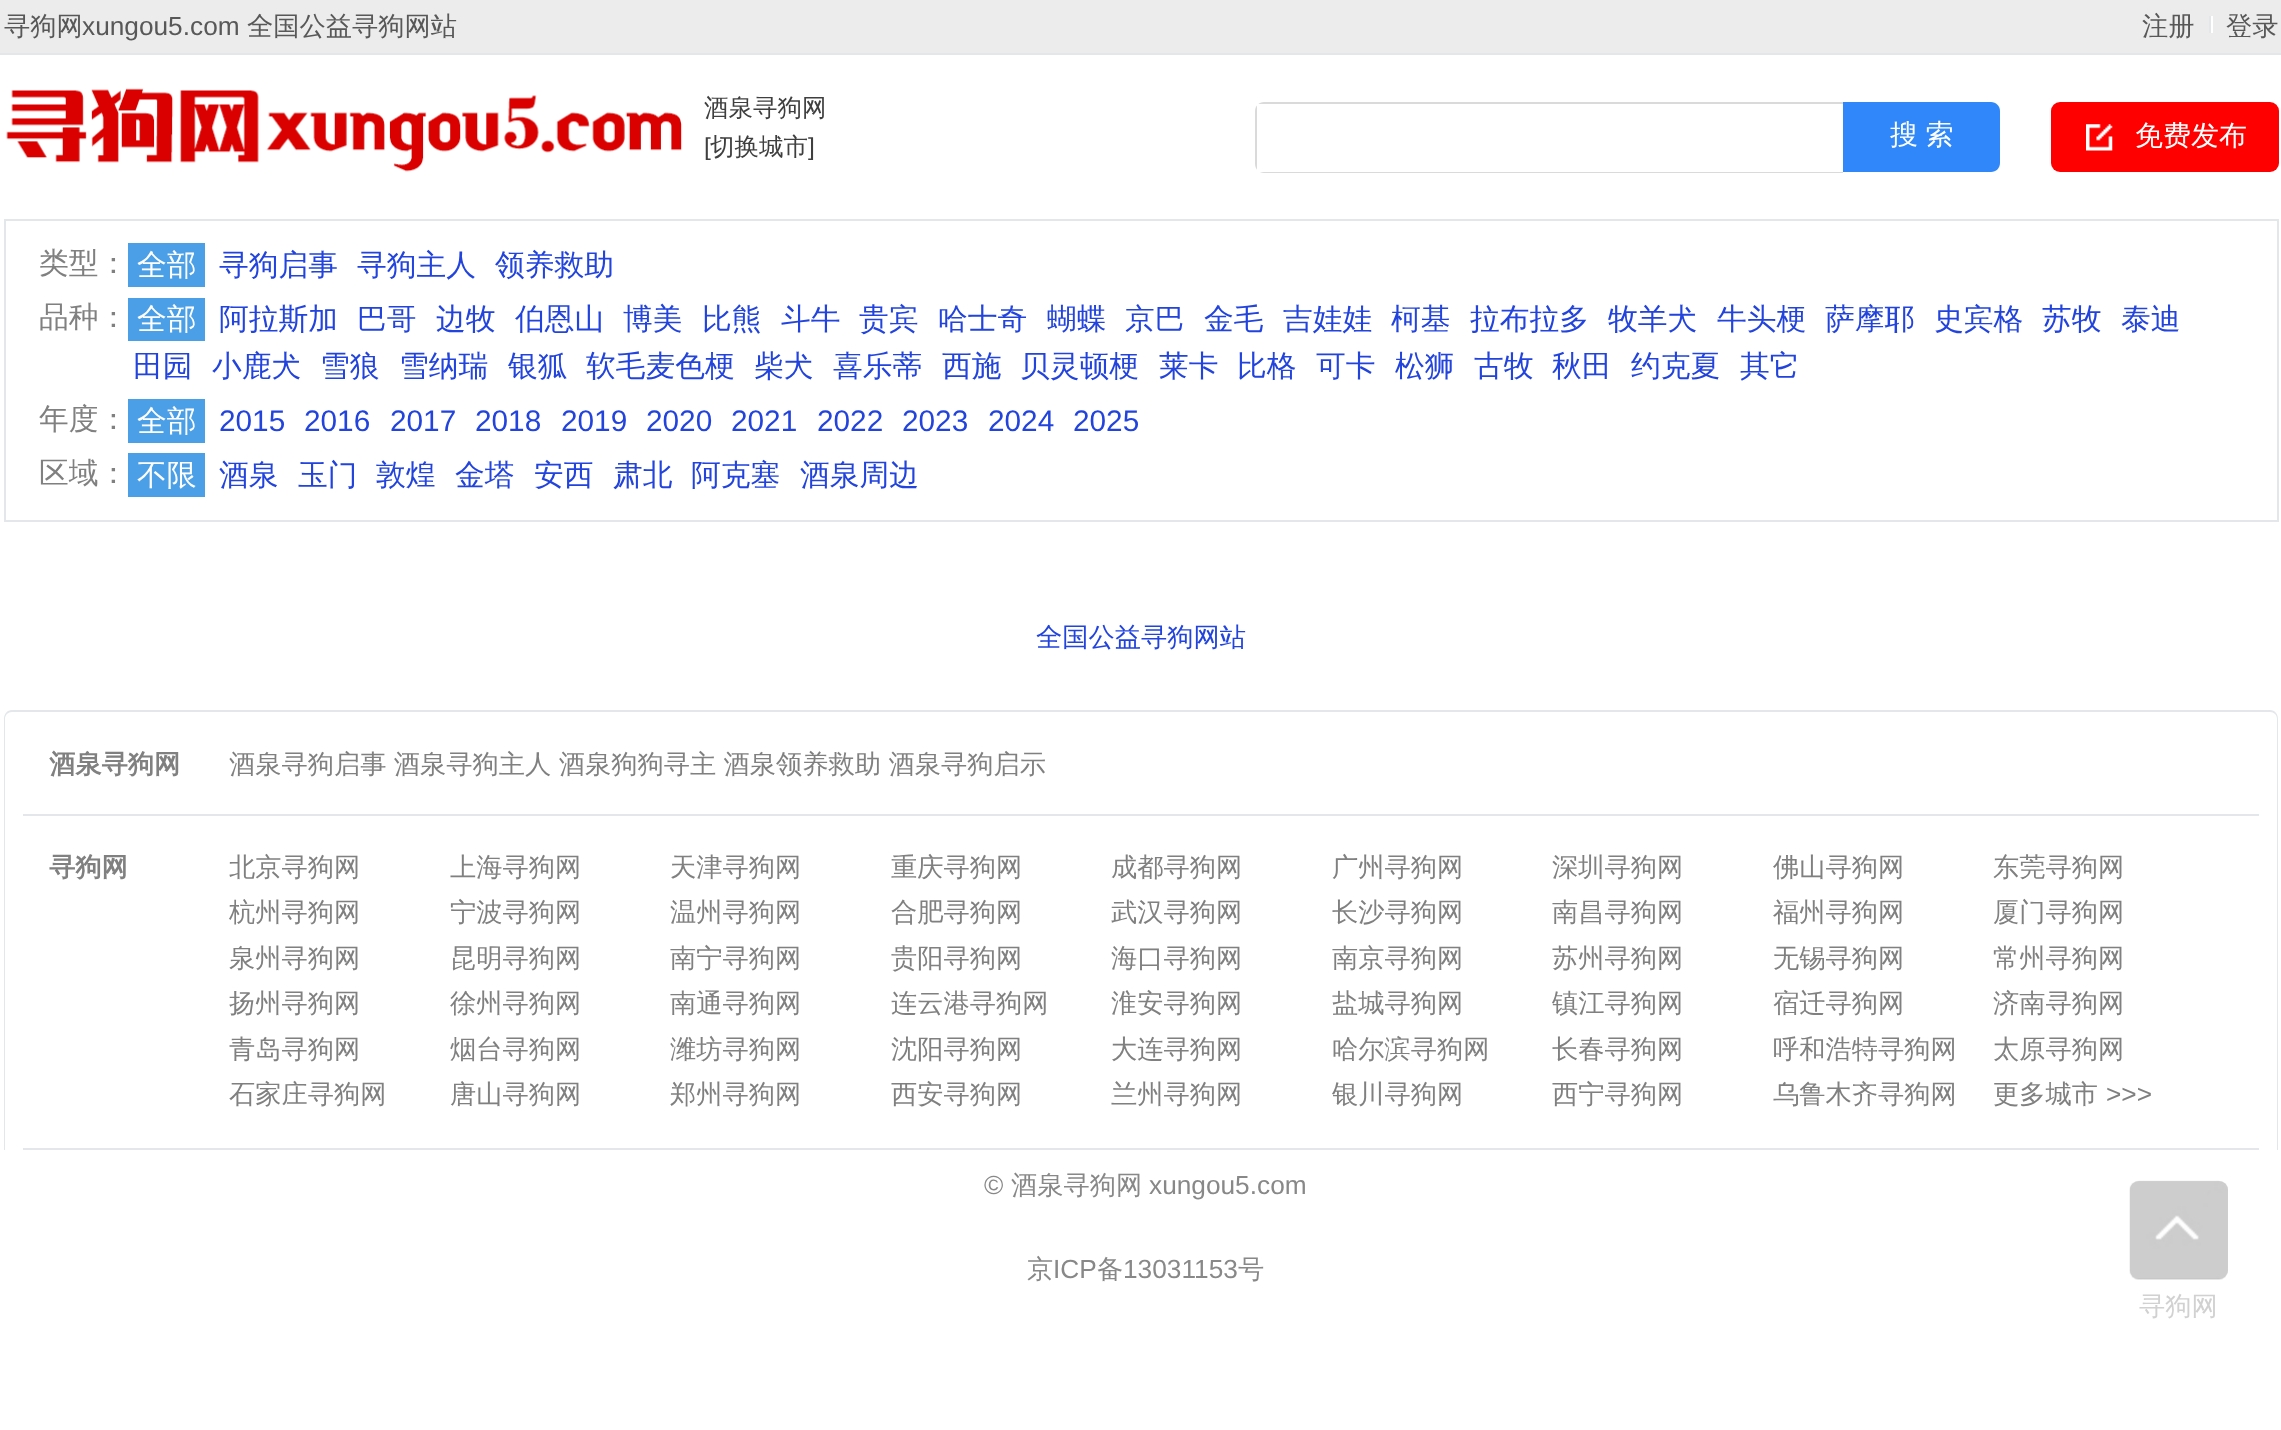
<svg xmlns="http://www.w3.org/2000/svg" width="2281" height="1430">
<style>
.a{font:500 26.25px WenQuanYi Zen Hei;fill:#585858}
.b{font:26.25px Liberation Sans;fill:#585858}
.c{font:500 24.5px WenQuanYi Zen Hei;fill:#3f3f3f}
.d{font:24.5px Liberation Sans;fill:#3f3f3f}
.e{font:500 28px WenQuanYi Zen Hei;fill:#fff}
.f{font:500 29.75px WenQuanYi Zen Hei;fill:#808080}
.g{font:500 29.75px WenQuanYi Zen Hei;fill:#fff}
.h{font:500 29.75px WenQuanYi Zen Hei;fill:#24d}
.i{font:29.75px Liberation Sans;fill:#24d}
.j{font:500 26.25px WenQuanYi Zen Hei;fill:#24d}
.k{font:bold 26.25px WenQuanYi Zen Hei;fill:#808080}
.l{font:500 26.25px WenQuanYi Zen Hei;fill:#808080}
.m{font:26.25px Liberation Sans;fill:#808080}
.n{font:26.25px Liberation Sans;fill:#888}
.o{font:500 26.25px WenQuanYi Zen Hei;fill:#888}
.p{font:500 26.25px WenQuanYi Zen Hei;fill:#d1d1d1}
</style>
<defs>
<clipPath id="clip1"><path d="M1264 102h778v71h-778c-5 0-9-4-9-9v-53c0-5 4-9 9-9z"/></clipPath>
</defs>
<rect width="100%" height="100%" fill="#fff"/>
<path fill="#edecec" d="M0 0h2281v53H0z"/>
<path fill="#e3e7e9" d="M0 53h2281v2H0z"/>
<path fill="#fff" d="M2211 16h2v17H2211z"/>
<path fill="#e3e7e9" d="M2209 16h2v17H2209z"/>
<image href="1.png" x="6" y="88" width="676" height="84"/>
<g clip-path="url(#clip1)">
<path fill="#dadada" d="M1255 102h588v2H1255z"/>
<path fill="#dadada" d="M1255 172h588v1H1255z"/>
<path fill="#dadada" d="M1255 102h2v71H1255z"/>
</g>
<path fill="#2f87f9" d="M1843 102h148c5 0 9 4 9 9v52c0 5-4 9-9 9h-148z"/>
<rect fill="#f00" x="2051" y="102" width="228" height="70" rx="9"/>
<image href="2.png" x="2086" y="124" width="27" height="27"/>
<path fill="none" stroke="#e3e7e9" stroke-width="2" d="M5 220h2273v301H5z"/>
<path fill="#4b9fe7" d="M128 243h77v44H128z"/>
<path fill="#4b9fe7" d="M128 298h77v43H128z"/>
<path fill="#4b9fe7" d="M128 399h77v44H128z"/>
<path fill="#4b9fe7" d="M128 453h77v44H128z"/>
<path fill="#e3e7e9" fill-rule="evenodd" d="M12 710h2258c5 0 8 4 8 9v431h-2274v-431c0-5 3-9 8-9zm0 2h2258c4 0 7 3 7 7v431h-2272v-431c0-4 3-7 7-7z"/>
<path fill="#e3e7e9" d="M23 814h2236v2H23z"/>
<path fill="#e3e7e9" d="M23 1148h2236v2H23z"/>
<rect fill="#d1d1d1" x="2130" y="1181" width="98" height="98" rx="9"/>
<image href="3.png" x="2129" y="1180" width="99" height="100"/>
<text class="a" x="4" y="35">寻狗网</text>
<text class="b" x="82" y="35">xungou5.com</text>
<text class="a" x="247" y="35">全国公益寻狗网站</text>
<text class="a" x="2142" y="35">注册</text>
<text class="a" x="2226" y="35">登录</text>
<text class="c" x="704" y="116">酒泉寻狗网</text>
<text class="d" x="704" y="155">[</text>
<text class="c" x="710" y="155">切换城市</text>
<text class="d" x="808" y="155">]</text>
<text class="e" x="1890" y="144" word-spacing="-1">搜 索</text>
<text class="e" x="2135" y="145">免费发布</text>
<text class="f" x="39" y="273">类型：</text>
<text class="g" x="137" y="275">全部</text>
<text class="h" x="219" y="275">寻狗启事</text>
<text class="h" x="357" y="275">寻狗主人</text>
<text class="h" x="495" y="275">领养救助</text>
<text class="f" x="39" y="327">品种：</text>
<text class="g" x="137" y="329">全部</text>
<text class="h" x="219" y="329">阿拉斯加</text>
<text class="h" x="357" y="329">巴哥</text>
<text class="h" x="436" y="329">边牧</text>
<text class="h" x="515" y="329">伯恩山</text>
<text class="h" x="623" y="329">博美</text>
<text class="h" x="702" y="329">比熊</text>
<text class="h" x="781" y="329">斗牛</text>
<text class="h" x="859" y="329">贵宾</text>
<text class="h" x="938" y="329">哈士奇</text>
<text class="h" x="1047" y="329">蝴蝶</text>
<text class="h" x="1125" y="329">京巴</text>
<text class="h" x="1204" y="329">金毛</text>
<text class="h" x="1283" y="329">吉娃娃</text>
<text class="h" x="1391" y="329">柯基</text>
<text class="h" x="1470" y="329">拉布拉多</text>
<text class="h" x="1608" y="329">牧羊犬</text>
<text class="h" x="1717" y="329">牛头梗</text>
<text class="h" x="1825" y="329">萨摩耶</text>
<text class="h" x="1934" y="329">史宾格</text>
<text class="h" x="2042" y="329">苏牧</text>
<text class="h" x="2121" y="329">泰迪</text>
<text class="h" x="133" y="376">田园</text>
<text class="h" x="212" y="376">小鹿犬</text>
<text class="h" x="320" y="376">雪狼</text>
<text class="h" x="399" y="376">雪纳瑞</text>
<text class="h" x="508" y="376">银狐</text>
<text class="h" x="586" y="376">软毛麦色梗</text>
<text class="h" x="754" y="376">柴犬</text>
<text class="h" x="833" y="376">喜乐蒂</text>
<text class="h" x="942" y="376">西施</text>
<text class="h" x="1020" y="376">贝灵顿梗</text>
<text class="h" x="1159" y="376">莱卡</text>
<text class="h" x="1237" y="376">比格</text>
<text class="h" x="1316" y="376">可卡</text>
<text class="h" x="1395" y="376">松狮</text>
<text class="h" x="1474" y="376">古牧</text>
<text class="h" x="1552" y="376">秋田</text>
<text class="h" x="1631" y="376">约克夏</text>
<text class="h" x="1740" y="376">其它</text>
<text class="f" x="39" y="429">年度：</text>
<text class="g" x="137" y="431">全部</text>
<text class="i" x="219" y="431">2015</text>
<text class="i" x="304" y="431">2016</text>
<text class="i" x="390" y="431">2017</text>
<text class="i" x="475" y="431">2018</text>
<text class="i" x="561" y="431">2019</text>
<text class="i" x="646" y="431">2020</text>
<text class="i" x="731" y="431">2021</text>
<text class="i" x="817" y="431">2022</text>
<text class="i" x="902" y="431">2023</text>
<text class="i" x="988" y="431">2024</text>
<text class="i" x="1073" y="431">2025</text>
<text class="f" x="39" y="483">区域：</text>
<text class="g" x="137" y="485">不限</text>
<text class="h" x="219" y="485">酒泉</text>
<text class="h" x="298" y="485">玉门</text>
<text class="h" x="376" y="485">敦煌</text>
<text class="h" x="455" y="485">金塔</text>
<text class="h" x="534" y="485">安西</text>
<text class="h" x="613" y="485">肃北</text>
<text class="h" x="691" y="485">阿克塞</text>
<text class="h" x="800" y="485">酒泉周边</text>
<text class="j" x="1036" y="646">全国公益寻狗网站</text>
<text class="k" x="49" y="773">酒泉寻狗网</text>
<text class="l" x="229" y="773" word-spacing="-0.5">酒泉寻狗启事 酒泉寻狗主人 酒泉狗狗寻主 酒泉领养救助 酒泉寻狗启示</text>
<text class="k" x="49" y="876">寻狗网</text>
<text class="l" x="229" y="876">北京寻狗网</text>
<text class="l" x="450" y="876">上海寻狗网</text>
<text class="l" x="670" y="876">天津寻狗网</text>
<text class="l" x="891" y="876">重庆寻狗网</text>
<text class="l" x="1111" y="876">成都寻狗网</text>
<text class="l" x="1332" y="876">广州寻狗网</text>
<text class="l" x="1552" y="876">深圳寻狗网</text>
<text class="l" x="1773" y="876">佛山寻狗网</text>
<text class="l" x="1993" y="876">东莞寻狗网</text>
<text class="l" x="229" y="921">杭州寻狗网</text>
<text class="l" x="450" y="921">宁波寻狗网</text>
<text class="l" x="670" y="921">温州寻狗网</text>
<text class="l" x="891" y="921">合肥寻狗网</text>
<text class="l" x="1111" y="921">武汉寻狗网</text>
<text class="l" x="1332" y="921">长沙寻狗网</text>
<text class="l" x="1552" y="921">南昌寻狗网</text>
<text class="l" x="1773" y="921">福州寻狗网</text>
<text class="l" x="1993" y="921">厦门寻狗网</text>
<text class="l" x="229" y="967">泉州寻狗网</text>
<text class="l" x="450" y="967">昆明寻狗网</text>
<text class="l" x="670" y="967">南宁寻狗网</text>
<text class="l" x="891" y="967">贵阳寻狗网</text>
<text class="l" x="1111" y="967">海口寻狗网</text>
<text class="l" x="1332" y="967">南京寻狗网</text>
<text class="l" x="1552" y="967">苏州寻狗网</text>
<text class="l" x="1773" y="967">无锡寻狗网</text>
<text class="l" x="1993" y="967">常州寻狗网</text>
<text class="l" x="229" y="1012">扬州寻狗网</text>
<text class="l" x="450" y="1012">徐州寻狗网</text>
<text class="l" x="670" y="1012">南通寻狗网</text>
<text class="l" x="891" y="1012">连云港寻狗网</text>
<text class="l" x="1111" y="1012">淮安寻狗网</text>
<text class="l" x="1332" y="1012">盐城寻狗网</text>
<text class="l" x="1552" y="1012">镇江寻狗网</text>
<text class="l" x="1773" y="1012">宿迁寻狗网</text>
<text class="l" x="1993" y="1012">济南寻狗网</text>
<text class="l" x="229" y="1058">青岛寻狗网</text>
<text class="l" x="450" y="1058">烟台寻狗网</text>
<text class="l" x="670" y="1058">潍坊寻狗网</text>
<text class="l" x="891" y="1058">沈阳寻狗网</text>
<text class="l" x="1111" y="1058">大连寻狗网</text>
<text class="l" x="1332" y="1058">哈尔滨寻狗网</text>
<text class="l" x="1552" y="1058">长春寻狗网</text>
<text class="l" x="1773" y="1058">呼和浩特寻狗网</text>
<text class="l" x="1993" y="1058">太原寻狗网</text>
<text class="l" x="229" y="1103">石家庄寻狗网</text>
<text class="l" x="450" y="1103">唐山寻狗网</text>
<text class="l" x="670" y="1103">郑州寻狗网</text>
<text class="l" x="891" y="1103">西安寻狗网</text>
<text class="l" x="1111" y="1103">兰州寻狗网</text>
<text class="l" x="1332" y="1103">银川寻狗网</text>
<text class="l" x="1552" y="1103">西宁寻狗网</text>
<text class="l" x="1773" y="1103">乌鲁木齐寻狗网</text>
<text class="l" x="1993" y="1103">更多城市</text>
<text class="m" x="2106" y="1103">&gt;&gt;&gt;</text>
<text class="n" x="984" y="1194">©</text>
<text class="o" x="1011" y="1194">酒泉寻狗网</text>
<text class="n" x="1149" y="1194">xungou5.com</text>
<text class="o" x="1027" y="1278">京</text>
<text class="n" x="1053" y="1278">ICP</text>
<text class="o" x="1097" y="1278">备</text>
<text class="n" x="1123" y="1278">13031153</text>
<text class="o" x="1238" y="1278">号</text>
<text class="p" x="2139" y="1315">寻狗网</text>
</svg>
